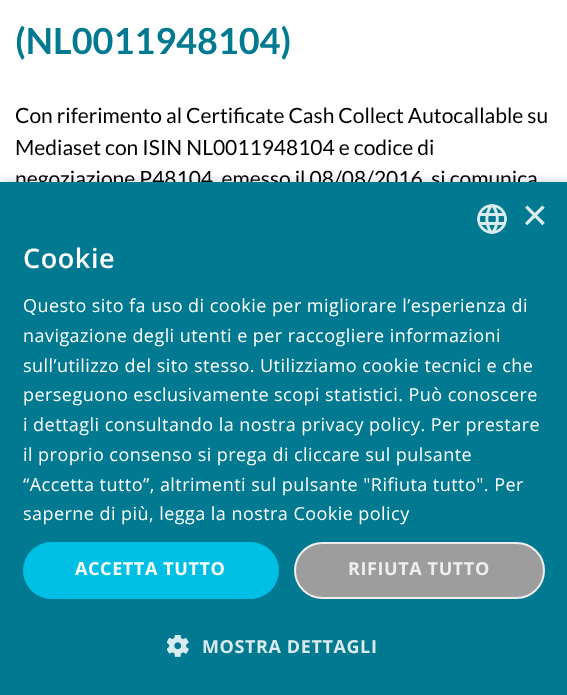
<svg xmlns="http://www.w3.org/2000/svg" width="567" height="695">
<style>
.a{font:bold 36px Lato;fill:#017990}
.b{font:21px Lato;fill:#000}
.c{font:44px Liberation Sans;fill:#d9ebee}
.d{font:600 27px Open Sans;letter-spacing:0.6px;fill:#fff}
.e{font:18px Open Sans;letter-spacing:0.45px;fill:#fff}
.f{font:bold 18px Open Sans;letter-spacing:0.6px;fill:#fff}
.g{font:bold 18px Open Sans;letter-spacing:0.6px;fill:#eee}
.h{font:bold 18px Open Sans;letter-spacing:0.6px;fill:#d9ebee}
</style>
<rect width="100%" height="100%" fill="#fff"/>
<path fill="#00000059" filter="blur(6px)" d="M2 185h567v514H2z"/>
<text class="a" x="15" y="54">(NL0011948104)</text>
<text class="b" x="15" y="123">Con riferimento al Certificate Cash Collect Autocallable su</text>
<text class="b" x="15" y="155">Mediaset con ISIN NL0011948104 e codice di</text>
<text class="b" x="15" y="186">negoziazione P48104, emesso il 08/08/2016, si comunica</text>
<path fill="#017990" d="M0 182h567v513H0z"/>
<image href="1.png" x="477" y="204" width="30" height="30"/>
<text class="c" x="522" y="230">×</text>
<text class="d" x="23" y="268">Cookie</text>
<text class="e" x="23" y="312">Questo sito fa uso di cookie per migliorare l’esperienza di</text>
<text class="e" x="23" y="342">navigazione degli utenti e per raccogliere informazioni</text>
<text class="e" x="23" y="372">sull’utilizzo del sito stesso. Utilizziamo cookie tecnici e che</text>
<text class="e" x="23" y="401">perseguono esclusivamente scopi statistici. Può conoscere</text>
<text class="e" x="23" y="431">i dettagli consultando la nostra privacy policy. Per prestare</text>
<text class="e" x="23" y="461">il proprio consenso si prega di cliccare sul pulsante</text>
<text class="e" x="23" y="491">“Accetta tutto”, altrimenti sul pulsante "Rifiuta tutto". Per</text>
<text class="e" x="23" y="520">saperne di più, legga la nostra Cookie policy</text>
<rect fill="#00bfe4" x="23" y="542" width="256" height="57" rx="28.5"/>
<text class="f" x="75" y="575">ACCETTA TUTTO</text>
<rect fill="#9d9d9d" stroke="#eee" stroke-width="2" x="295" y="543" width="249" height="55" rx="27.5"/>
<text class="g" x="348" y="575">RIFIUTA TUTTO</text>
<image href="2.png" x="167" y="635" width="22" height="22"/>
<text class="h" x="202" y="653">MOSTRA DETTAGLI</text>
</svg>
